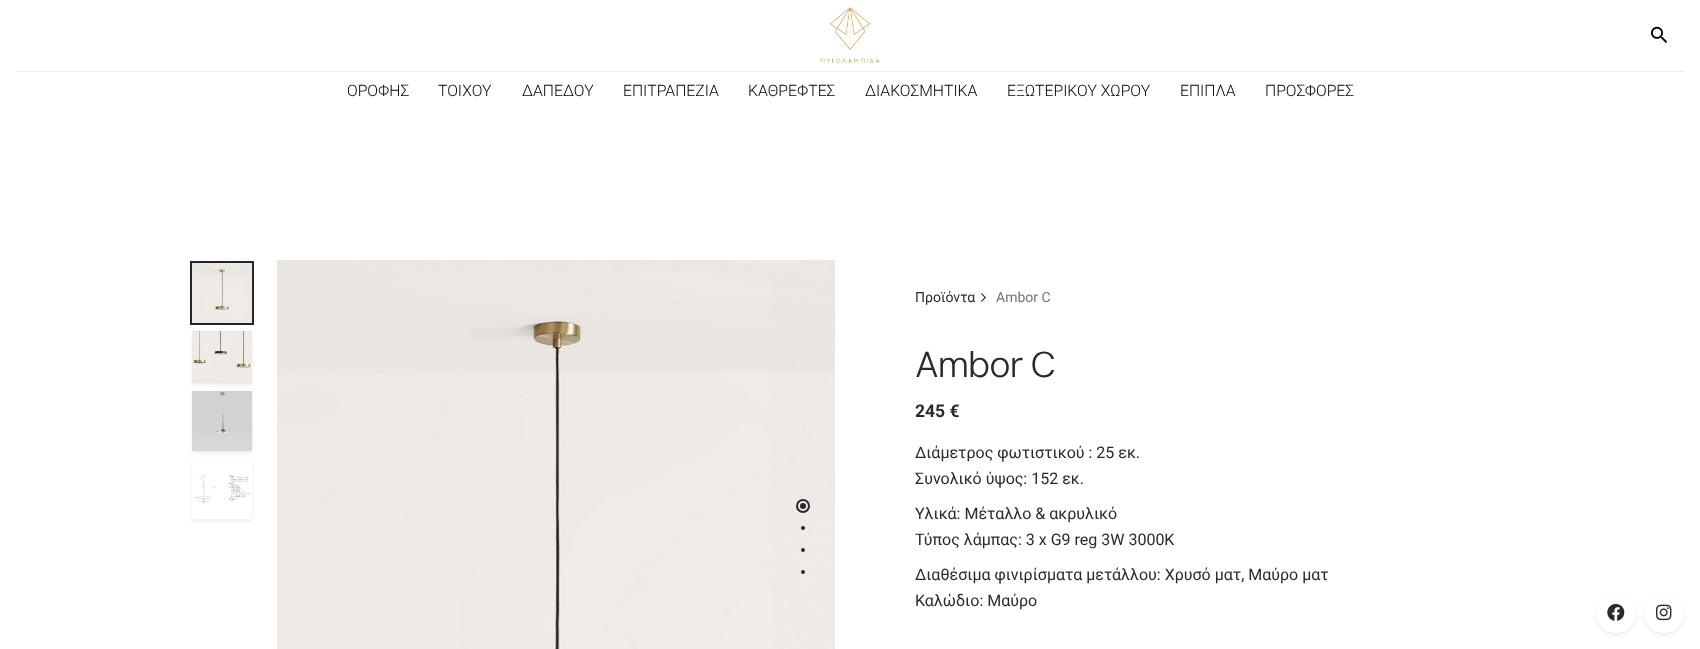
<svg xmlns="http://www.w3.org/2000/svg" width="1700" height="649">
<style>
.a{font:300 15.75px Roboto;fill:#000}
.b{font:14px Roboto;fill:#282a2f}
.c{font:14px Roboto;fill:#717275}
.d{font:300 36px DM Sans;letter-spacing:-1px;fill:#282a2f}
.e{font:bold 17.5px Roboto;fill:#282a2f}
.f{font:16px Roboto;fill:#282a2f}
</style>
<defs>
<clipPath id="clip1"><path d="M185 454h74v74h-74zm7 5h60v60h-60z" clip-rule="evenodd"/></clipPath>
</defs>
<rect width="100%" height="100%" fill="#fff"/>
<image href="1.png" x="820" y="7" width="60" height="57"/>
<image href="2.png" x="1651" y="26" width="17" height="17"/>
<path fill="#edeeee" d="M16 71h1668v1H16z"/>
<path fill="none" stroke="#24262b" stroke-width="2" d="M191 262h62v62H191z"/>
<image href="3.png" x="192" y="263" width="60" height="60"/>
<path fill="#00000014" filter="blur(2px)" d="M192 333h60v52H192z"/>
<image href="4.png" x="192" y="331" width="60" height="52"/>
<path fill="#00000014" filter="blur(2px)" d="M192 393h60v60H192z"/>
<image href="5.png" x="192" y="391" width="60" height="60"/>
<g clip-path="url(#clip1)">
<path fill="#00000014" filter="blur(2px)" d="M192 461h60v60H192z"/>
</g>
<image href="6.png" x="194" y="474" width="57" height="29"/>
<image href="7.png" x="277" y="260" width="558" height="389"/>
<circle fill="none" stroke="#282a2f" stroke-width="2" cx="803" cy="506" r="6"/>
<circle fill="#282a2f" cx="803" cy="506" r="3"/>
<circle fill="#282a2f" cx="803" cy="528" r="2"/>
<circle fill="#282a2f" cx="803" cy="550" r="2"/>
<circle fill="#282a2f" cx="803" cy="572" r="2"/>
<image href="8.png" x="981" y="293" width="5" height="9"/>
<rect fill="#00000014" filter="blur(2px)" x="1596" y="595" width="40" height="40" rx="20"/>
<circle fill="#fff" stroke="#fff" stroke-width="2" cx="1616" cy="613" r="19"/>
<image href="9.png" x="1607" y="603" width="18" height="18"/>
<rect fill="#00000014" filter="blur(2px)" x="1644" y="595" width="40" height="40" rx="20"/>
<circle fill="#fff" stroke="#fff" stroke-width="2" cx="1664" cy="613" r="19"/>
<image href="10.png" x="1656" y="604" width="16" height="17"/>
<text class="a" x="347" y="96">ΟΡΟΦΗΣ</text>
<text class="a" x="438" y="96">ΤΟΙΧΟΥ</text>
<text class="a" x="522" y="96">ΔΑΠΕΔΟΥ</text>
<text class="a" x="623" y="96">ΕΠΙΤΡΑΠΕΖΙΑ</text>
<text class="a" x="748" y="96">ΚΑΘΡΕΦΤΕΣ</text>
<text class="a" x="865" y="96">ΔΙΑΚΟΣΜΗΤΙΚΑ</text>
<text class="a" x="1007" y="96">ΕΞΩΤΕΡΙΚΟΥ ΧΩΡΟΥ</text>
<text class="a" x="1180" y="96">ΕΠΙΠΛΑ</text>
<text class="a" x="1265" y="96">ΠΡΟΣΦΟΡΕΣ</text>
<text class="b" x="915" y="302">Προϊόντα</text>
<text class="c" x="996" y="302">Ambor C</text>
<text class="d" x="915" y="377" word-spacing="-1">Ambor C</text>
<text class="e" x="915" y="417">245 €</text>
<text class="f" x="915" y="458">Διάμετρος φωτιστικού : 25 εκ.</text>
<text class="f" x="915" y="484">Συνολικό ύψος: 152 εκ.</text>
<text class="f" x="915" y="519">Υλικά: Μέταλλο &amp; ακρυλικό</text>
<text class="f" x="915" y="545">Τύπος λάμπας: 3 x G9 reg 3W 3000K</text>
<text class="f" x="915" y="580">Διαθέσιμα φινιρίσματα μετάλλου: Χρυσό ματ, Μαύρο ματ</text>
<text class="f" x="915" y="606">Καλώδιο: Μαύρο</text>
</svg>
